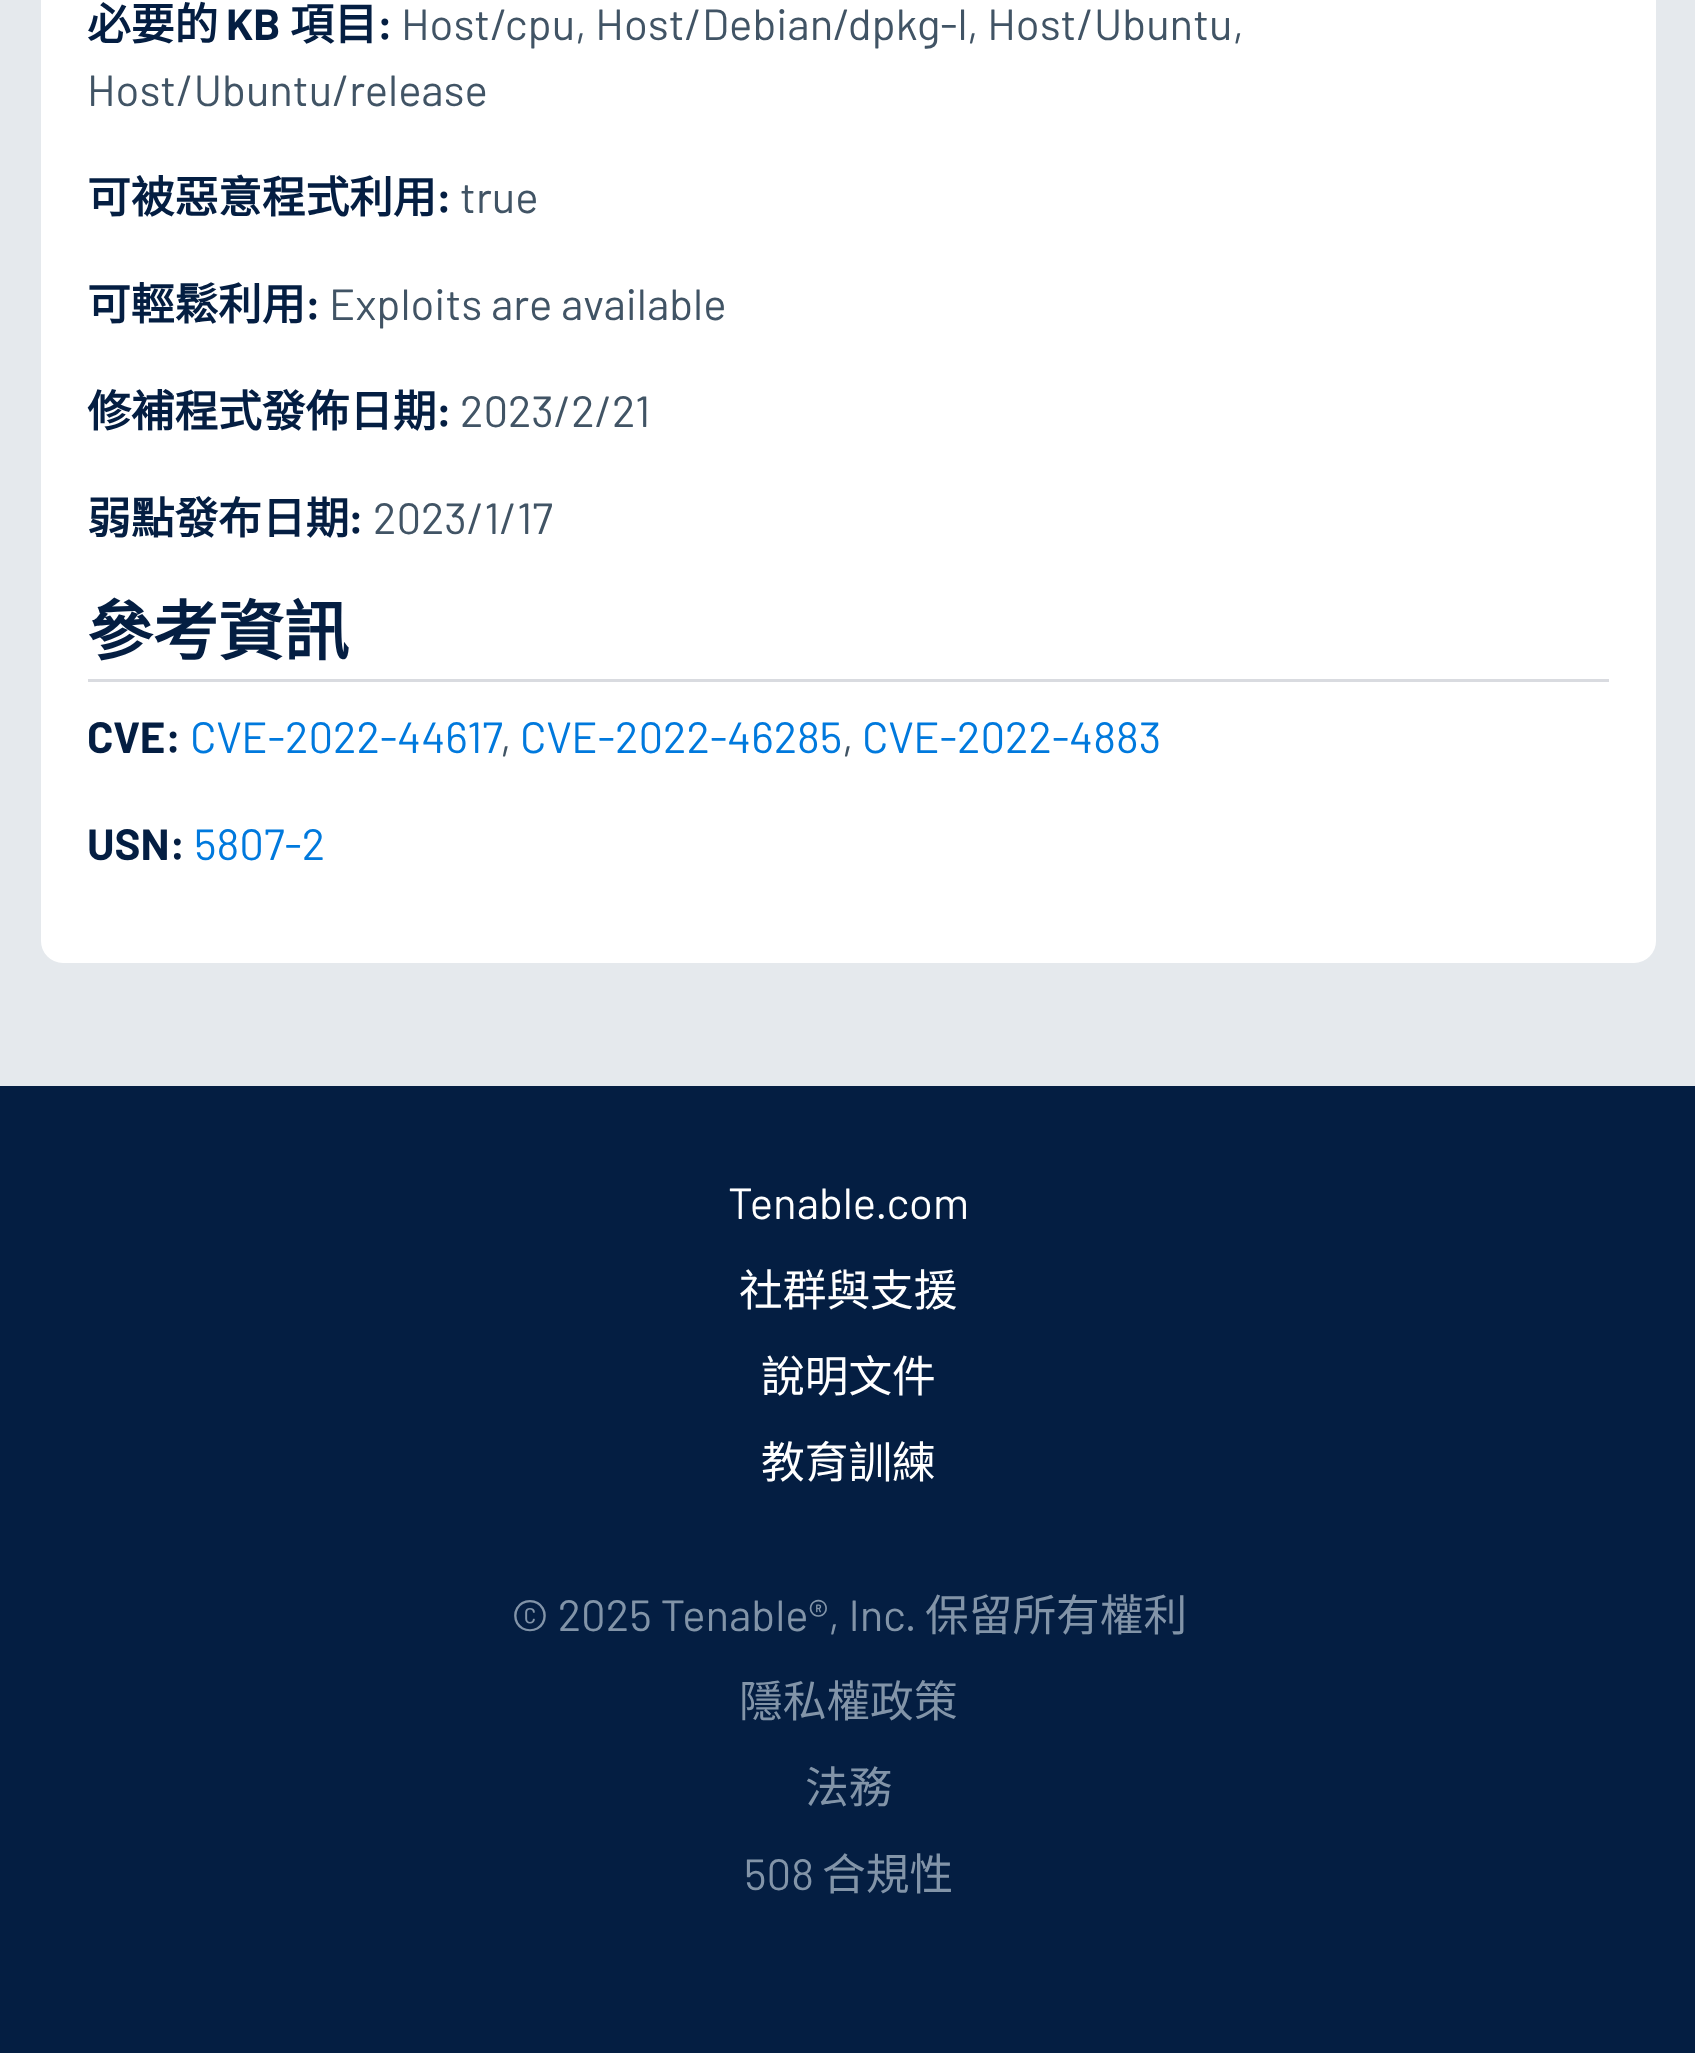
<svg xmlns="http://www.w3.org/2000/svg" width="1695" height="2053">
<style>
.a{font:bold 43.7px Noto Sans CJK TC;fill:#041e42}
.b{font:bold 43.7px Barlow;fill:#041e42}
.c{font:43.7px Barlow;fill:#415465}
.d{font:bold 65.5px Noto Sans CJK TC;fill:#041e42}
.e{font:43.7px Barlow;fill:#0079dd}
.f{font:43.7px Barlow;fill:#fff}
.g{font:43.7px Noto Sans CJK TC;fill:#fff}
.h{font:43.7px Barlow;fill:#8294a8}
.i{font:43.7px Noto Sans CJK TC;fill:#8294a8}
</style>
<rect width="100%" height="100%" fill="#e5e9ed"/>
<rect fill="#fff" stroke="#fff" stroke-width="3" x="42.5" y="-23.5" width="1612" height="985" rx="20.5"/>
<path fill="#d9dbe0" d="M88 679h1521v3H88z"/>
<path fill="#041e42" d="M0 1086h1695v967H0z"/>
<text class="a" x="87" y="40">必要的</text>
<text class="b" x="226" y="40">KB</text>
<text class="a" x="290" y="40">項目</text>
<text class="b" x="377" y="40">:</text>
<text class="c" x="401" y="40">Host/cpu, Host/Debian/dpkg-l</text>
<text class="c" x="967" y="40">, Host/Ubuntu,</text>
<text class="c" x="87" y="106">Host/Ubuntu/release</text>
<text class="a" x="87" y="213">可被惡意程式利用</text>
<text class="b" x="436" y="213">:</text>
<text class="c" x="460" y="213">true</text>
<text class="a" x="87" y="320">可輕鬆利用</text>
<text class="b" x="305" y="320">:</text>
<text class="c" x="329" y="320">Exploits are available</text>
<text class="a" x="87" y="427">修補程式發佈日期</text>
<text class="b" x="436" y="427">:</text>
<text class="c" x="460" y="427">2023/2/21</text>
<text class="a" x="87" y="534">弱點發布日期</text>
<text class="b" x="348" y="534">:</text>
<text class="c" x="373" y="534">2023/1/17</text>
<text class="d" x="87" y="655">參考資訊</text>
<text class="b" x="87" y="753">CVE:</text>
<text class="e" x="190" y="753">CVE-2022-44617</text>
<text class="c" x="500" y="753">,</text>
<text class="e" x="520" y="753">CVE-2022-46285</text>
<text class="c" x="842" y="753">,</text>
<text class="e" x="862" y="753">CVE-2022-4883</text>
<text class="b" x="87" y="860">USN:</text>
<text class="e" x="194" y="860">5807-2</text>
<text class="f" x="728" y="1219">Tenable.com</text>
<text class="g" x="739" y="1306">社群與支援</text>
<text class="g" x="761" y="1392">說明文件</text>
<text class="g" x="761" y="1478">教育訓練</text>
<text class="h" x="511" y="1631">© 2025 Tenable®, Inc.</text>
<text class="i" x="925" y="1631">保留所有權利</text>
<text class="i" x="739" y="1717">隱私權政策</text>
<text class="i" x="805" y="1803">法務</text>
<text class="h" x="744" y="1890">508</text>
<text class="i" x="822" y="1890">合規性</text>
</svg>
